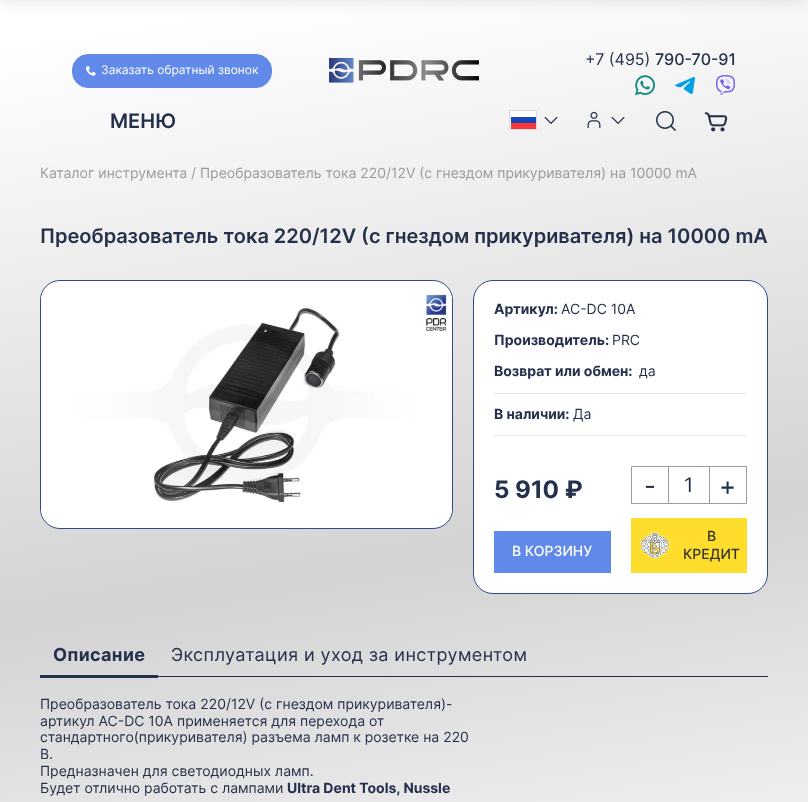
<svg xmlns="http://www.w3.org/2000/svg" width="808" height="802">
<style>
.a{font:12px Inter;fill:#fff}
.b{font:16px Inter;fill:#25314c}
.c{font:500 16px Inter;fill:#25314c}
.d{font:600 20px Inter;fill:#25314c}
.e{font:14px Inter;fill:#9b9b9b}
.f{font:bold 14px Inter;fill:#25314c}
.g{font:14px Inter;fill:#25314c}
.h{font:bold 24px Inter;fill:#25314c}
.i{font:26px Inter;fill:#25314c}
.j{font:20px Inter;fill:#25314c}
.k{font:500 14px Inter;fill:#fff}
.l{font:500 14px Inter;fill:#333}
.m{font:bold 18px Inter;letter-spacing:0.4px;fill:#25314c}
.n{font:18px Inter;letter-spacing:0.4px;fill:#25314c}
</style>
<defs>
<linearGradient id="g1" gradientUnits="userSpaceOnUse" x1="232" y1="-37" x2="576" y2="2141"><stop offset="0.02" stop-color="#fff"/><stop offset="0.28" stop-color="#d3d3d3"/><stop offset="0.5" stop-color="#fff"/><stop offset="0.72" stop-color="#d2d2d2"/><stop offset="0.92" stop-color="#fbfbfb"/></linearGradient>
</defs>
<rect width="100%" height="100%" fill="#fff"/>
<path fill="url(#g1)" d="M0 0h808v802H0z"/>
<path fill="#0000001a" filter="blur(8px)" d="M0 -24h808v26H0z"/>
<rect fill="#6189e9" stroke="#6189e9" x="72.5" y="54.5" width="199" height="33" rx="15.5"/>
<image href="1.png" x="86" y="66" width="10" height="10"/>
<image href="2.png" x="329" y="58" width="150" height="25"/>
<image href="3.png" x="635" y="75" width="20" height="21"/>
<image href="4.png" x="675" y="77" width="20" height="17"/>
<image href="5.png" x="716" y="75" width="19" height="20"/>
<path fill="none" stroke="#dadada" d="M509.5 110.5h27v19H509.5z"/>
<path fill="#1a47b8" d="M511 117h25v6H511z"/>
<path fill="#f93939" d="M511 123h25v6H511z"/>
<path fill="#fff" d="M511 111h25v6H511z"/>
<image href="6.png" x="544" y="116" width="14" height="8"/>
<image href="7.png" x="587" y="111" width="14" height="18"/>
<image href="8.png" x="611" y="116" width="14" height="8"/>
<image href="9.png" x="656" y="111" width="20" height="20"/>
<image href="10.png" x="704" y="112" width="24" height="20"/>
<rect fill="#fff" stroke="#324989" x="40.5" y="280.5" width="412" height="248" rx="19.5"/>
<image href="11.png" x="41" y="289" width="411" height="231"/>
<rect fill="#fff" stroke="#324989" x="473.5" y="280.5" width="294" height="313" rx="19.5"/>
<path fill="#e7e7e7" d="M494 393h253v1H494z"/>
<path fill="#e7e7e7" d="M494 435h253v1H494z"/>
<path fill="none" stroke="#9b9b9b" d="M631.5 466.5h37v37H631.5z"/>
<path fill="none" stroke="#9b9b9b" d="M668.5 466.5h41v37H668.5z"/>
<path fill="none" stroke="#9b9b9b" d="M709.5 466.5h37v37H709.5z"/>
<path fill="#6189e9" d="M494 531h117v42H494z"/>
<path fill="#ffdd2d" d="M631 518h116v55H631z"/>
<image href="12.png" x="640" y="532" width="30" height="27"/>
<path fill="#25314c" d="M40 675h118v3H40z"/>
<path fill="#25314c" d="M158 676h610v1H158z"/>
<text class="a" x="101" y="74">Заказать обратный звонок</text>
<text class="b" x="585" y="65">+7 (495)</text>
<text class="c" x="655" y="65">790-70-91</text>
<text class="d" x="110" y="128">МЕНЮ</text>
<text class="e" x="40" y="178">Каталог инструмента / Преобразователь тока 220/12V (с гнездом прикуривателя) на 10000 mA</text>
<text class="d" x="40" y="243">Преобразователь тока 220/12V (с гнездом прикуривателя) на 10000 mA</text>
<text class="f" x="494" y="314">Артикул:</text>
<text class="g" x="561" y="314">AC-DC 10A</text>
<text class="f" x="494" y="345">Производитель:</text>
<text class="g" x="612" y="345">PRC</text>
<text class="f" x="494" y="376">Возврат или обмен:</text>
<text class="g" x="639" y="376">да</text>
<text class="f" x="494" y="419">В наличии:</text>
<text class="g" x="573" y="419">Да</text>
<text class="h" x="494" y="498">5 910 ₽</text>
<text class="i" x="644" y="495">-</text>
<text class="j" x="684" y="492">1</text>
<text class="i" x="719" y="495">+</text>
<text class="k" x="512" y="556">В КОРЗИНУ</text>
<text class="l" x="707" y="541">В</text>
<text class="l" x="683" y="559">КРЕДИТ</text>
<text class="m" x="53" y="661">Описание</text>
<text class="n" x="171" y="661">Эксплуатация и уход за инструментом</text>
<text class="g" x="40" y="709">Преобразователь тока 220/12V (с гнездом прикуривателя)-</text>
<text class="g" x="40" y="726">артикул AC-DC 10A применяется для перехода от</text>
<text class="g" x="40" y="742">стандартного(прикуривателя) разъема ламп к розетке на 220</text>
<text class="g" x="40" y="759">В.</text>
<text class="g" x="40" y="776">Предназначен для светодиодных ламп.</text>
<text class="g" x="40" y="793">Будет отлично работать с лампами</text>
<text class="f" x="287" y="793">Ultra Dent Tools, Nussle</text>
</svg>
